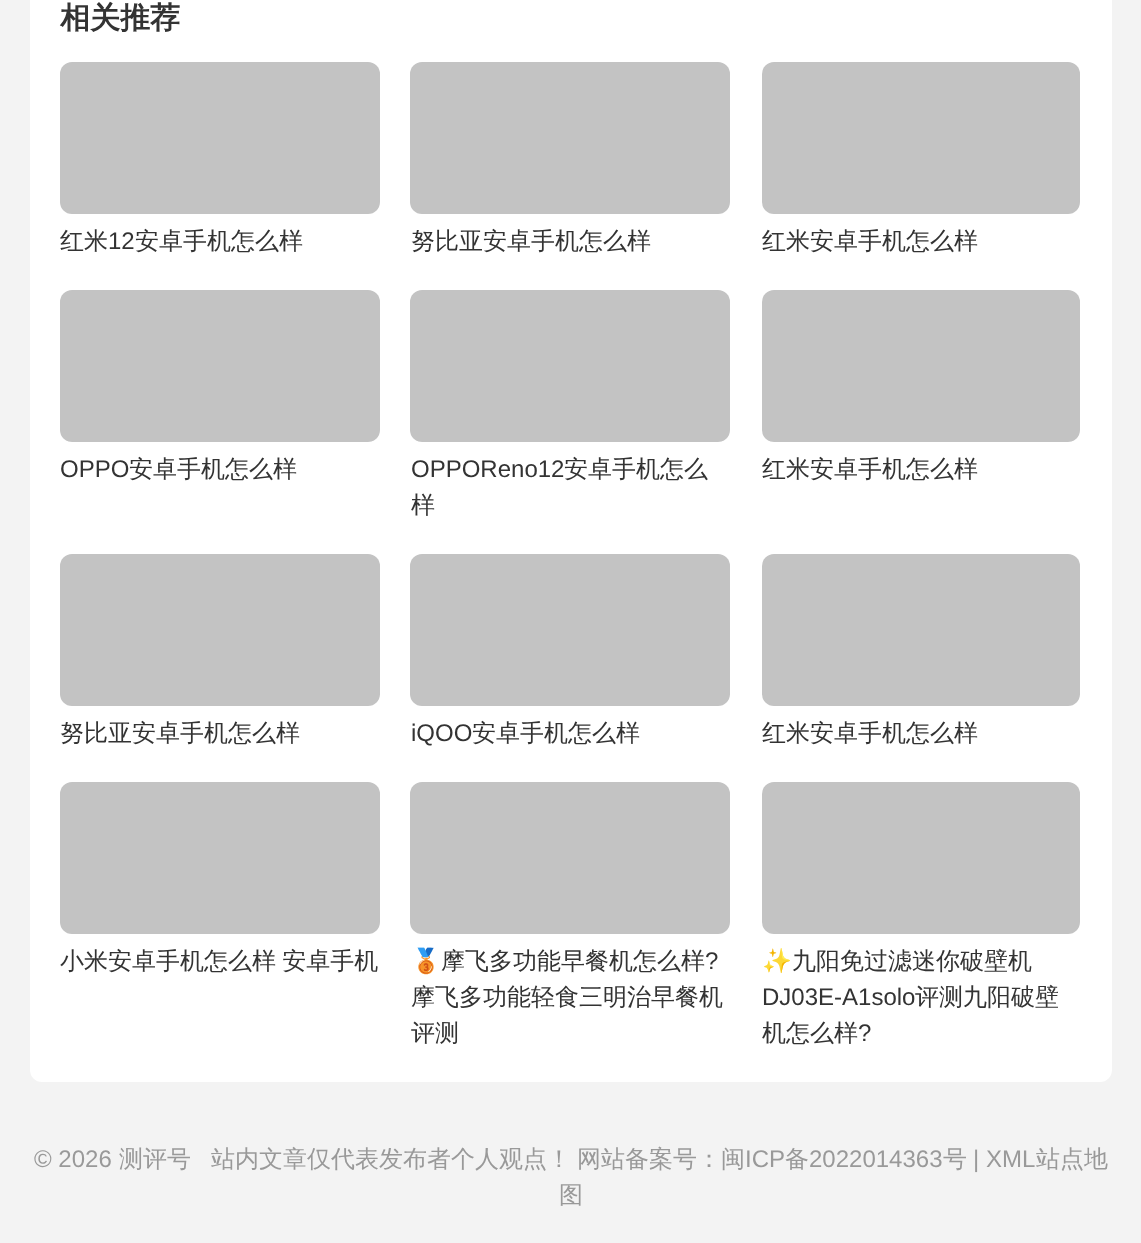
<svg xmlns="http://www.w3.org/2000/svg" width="1141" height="1243">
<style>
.a{font:bold 30px WenQuanYi Zen Hei;fill:#333}
.b{font:500 24px WenQuanYi Zen Hei;fill:#333}
.c{font:24px Liberation Sans;fill:#333}
.d{font:24px Noto Color Emoji;fill:#333}
.e{font:24px Liberation Sans;fill:#999}
.f{font:500 24px WenQuanYi Zen Hei;fill:#999}
</style>
<rect width="100%" height="100%" fill="#f3f3f3"/>
<rect fill="#fff" x="30" y="-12" width="1082" height="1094" rx="12"/>
<image href="1.png" x="60" y="62" width="320" height="152"/>
<image href="2.png" x="410" y="62" width="320" height="152"/>
<image href="3.png" x="762" y="62" width="318" height="152"/>
<image href="4.png" x="60" y="290" width="320" height="152"/>
<image href="5.png" x="410" y="290" width="320" height="152"/>
<image href="6.png" x="762" y="290" width="318" height="152"/>
<image href="7.png" x="60" y="554" width="320" height="152"/>
<image href="8.png" x="410" y="554" width="320" height="152"/>
<image href="9.png" x="762" y="554" width="318" height="152"/>
<image href="1.png" x="60" y="782" width="320" height="152"/>
<image href="2.png" x="410" y="782" width="320" height="152"/>
<image href="3.png" x="762" y="782" width="318" height="152"/>
<text class="a" x="60" y="28">相关推荐</text>
<text class="b" x="60" y="249">红米</text>
<text class="c" x="108" y="249">12</text>
<text class="b" x="135" y="249">安卓手机怎么样</text>
<text class="b" x="411" y="249">努比亚安卓手机怎么样</text>
<text class="b" x="762" y="249">红米安卓手机怎么样</text>
<text class="c" x="60" y="477">OPPO</text>
<text class="b" x="129" y="477">安卓手机怎么样</text>
<text class="c" x="411" y="477">OPPOReno12</text>
<text class="b" x="564" y="477">安卓手机怎么</text>
<text class="b" x="411" y="513">样</text>
<text class="b" x="762" y="477">红米安卓手机怎么样</text>
<text class="b" x="60" y="741">努比亚安卓手机怎么样</text>
<text class="c" x="411" y="741">iQOO</text>
<text class="b" x="472" y="741">安卓手机怎么样</text>
<text class="b" x="762" y="741">红米安卓手机怎么样</text>
<text class="b" x="60" y="969" word-spacing="-1">小米安卓手机怎么样 安卓手机</text>
<text class="d" x="411" y="969">🥉</text>
<text class="b" x="441" y="969">摩飞多功能早餐机怎么样</text>
<text class="c" x="705" y="969">?</text>
<text class="b" x="411" y="1005">摩飞多功能轻食三明治早餐机</text>
<text class="b" x="411" y="1041">评测</text>
<text class="d" x="762" y="969">✨</text>
<text class="b" x="792" y="969">九阳免过滤迷你破壁机</text>
<text class="c" x="762" y="1005">DJ03E-A1solo</text>
<text class="b" x="915" y="1005">评测九阳破壁</text>
<text class="b" x="762" y="1041">机怎么样</text>
<text class="c" x="858" y="1041">?</text>
<text class="e" x="34" y="1167">© 2026</text>
<text class="f" x="119" y="1167">测评号</text>
<text class="f" x="211" y="1167">站内文章仅代表发布者个人观点！</text>
<text class="f" x="577" y="1167">网站备案号：闽</text>
<text class="e" x="745" y="1167">ICP</text>
<text class="f" x="785" y="1167">备</text>
<text class="e" x="809" y="1167">2022014363</text>
<text class="f" x="943" y="1167">号</text>
<text class="e" x="973" y="1167">| XML</text>
<text class="f" x="1036" y="1167">站点地</text>
<text class="f" x="559" y="1203">图</text>
</svg>
